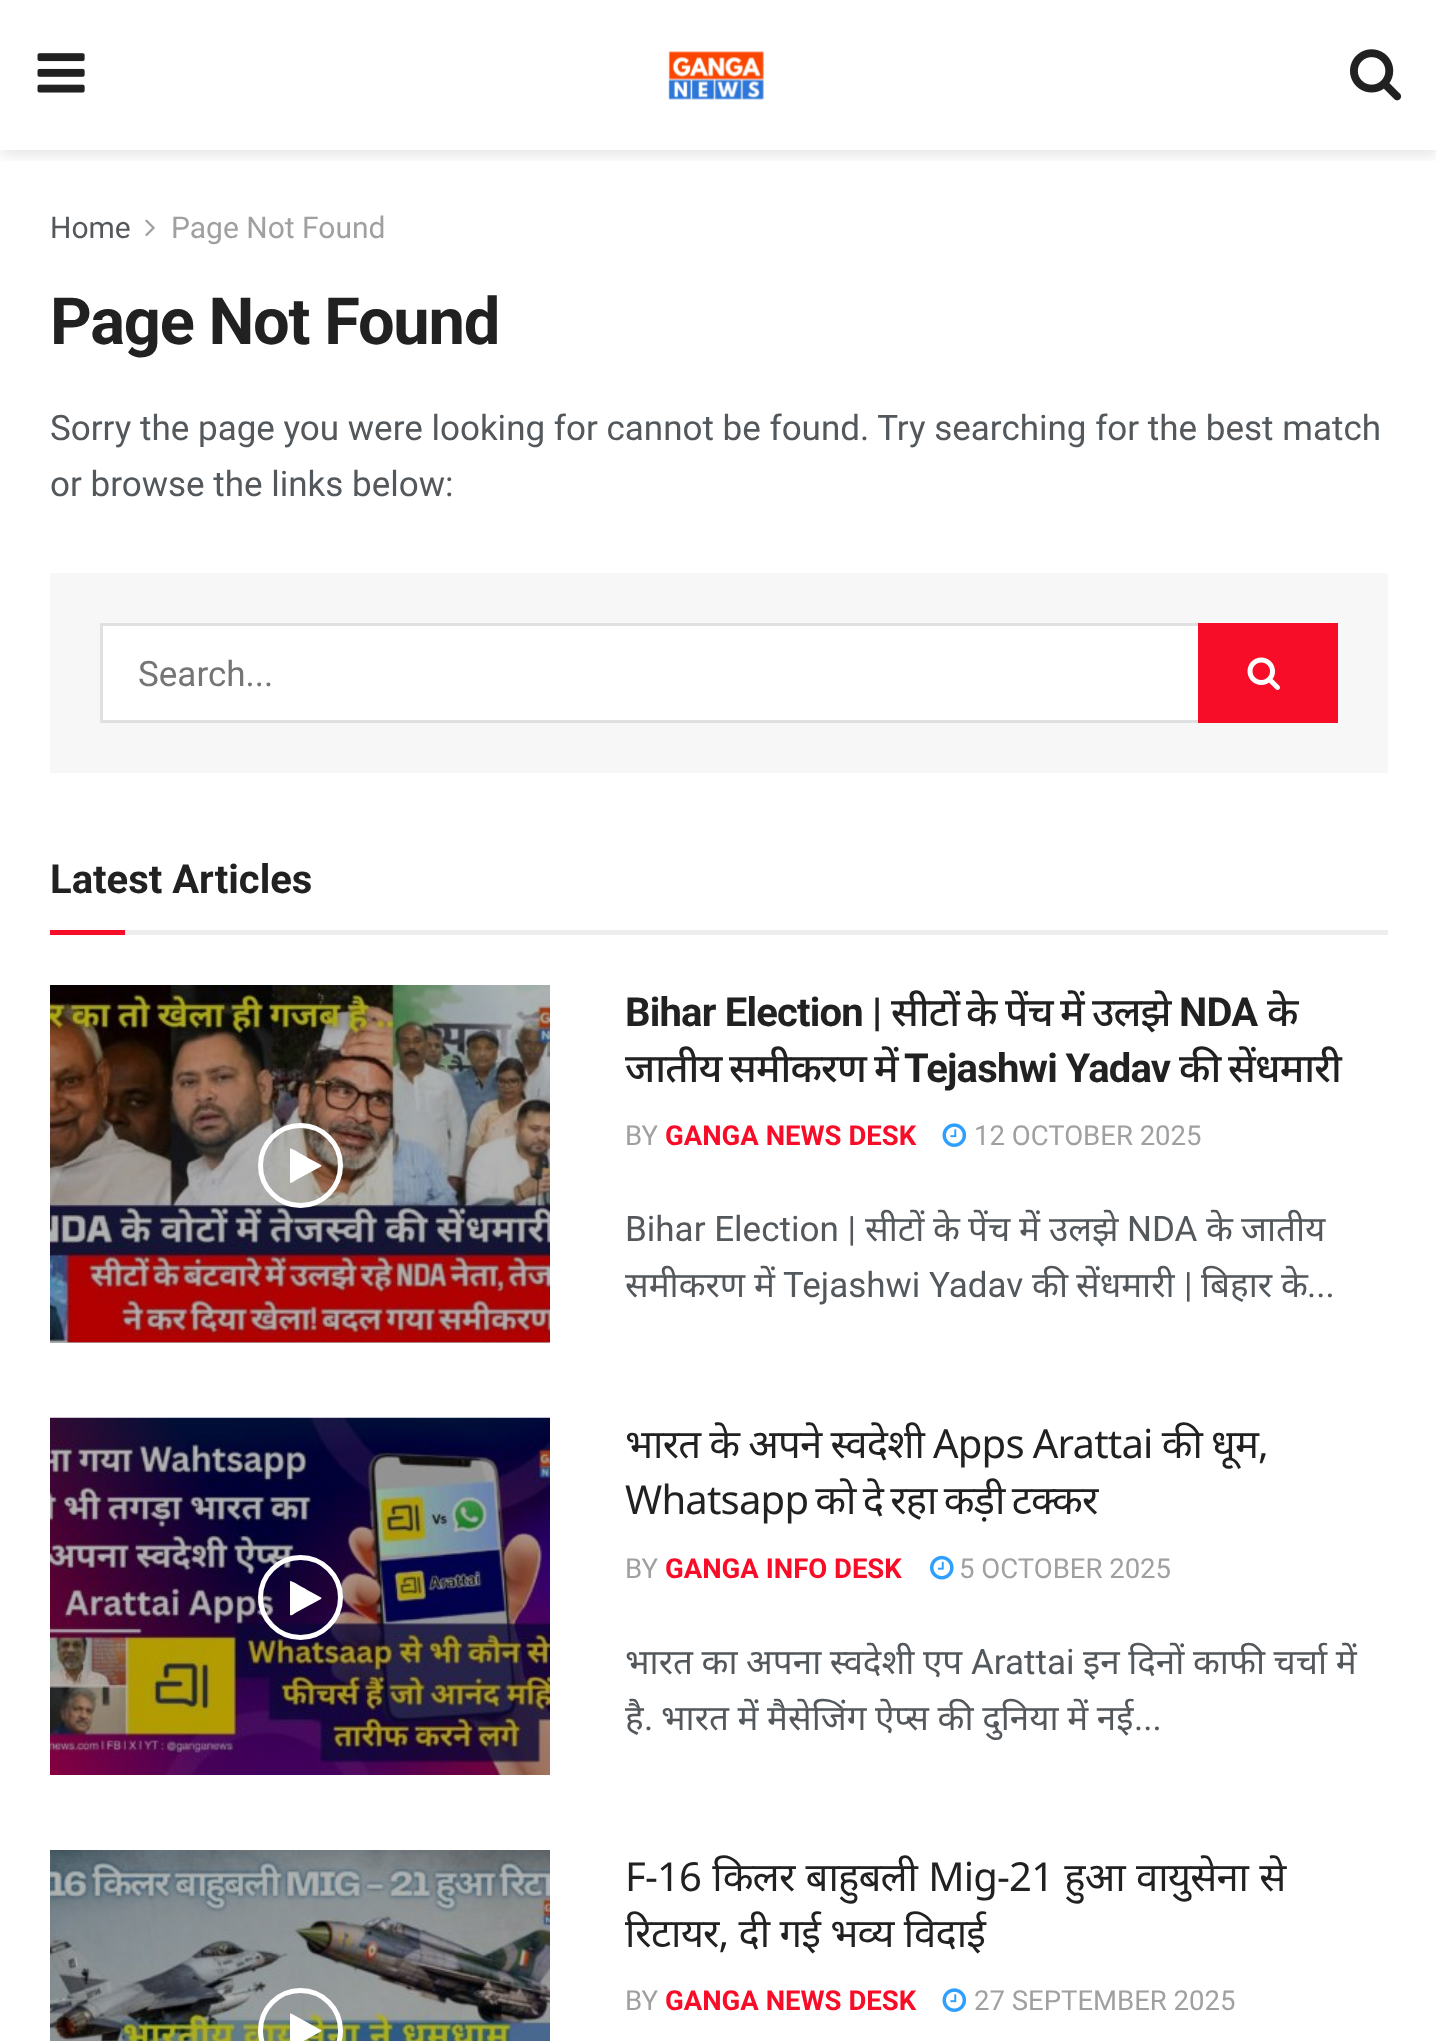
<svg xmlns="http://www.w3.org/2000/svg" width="1436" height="2041">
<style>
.a{font:30px Roboto;fill:#53585c}
.b{font:30px Roboto;fill:#a0a0a0}
.c{font:bold 65px Roboto;letter-spacing:-1.25px;fill:#212121}
.d{font:35px Roboto;fill:#53585c}
.e{font:35px Roboto;fill:#757575}
.f{font:bold 40px Roboto;fill:#212121}
.g{font:bold 40px Roboto;letter-spacing:-0.8px;fill:#212121}
.h{font:500 40px Noto Sans;letter-spacing:-0.8px;fill:#212121}
.i{font:27.5px Roboto;fill:#a0a0a0}
.j{font:bold 27.5px Roboto;fill:#f70d28}
.k{font:35px Noto Sans;fill:#53585c}
.l{font:40px Noto Sans;letter-spacing:-0.8px;fill:#212121}
</style>
<defs>
<clipPath id="clip1"><path d="M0 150h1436v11H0z"/></clipPath>
<clipPath id="clip2"><path d="M625 1418h763v327H625z"/></clipPath>
</defs>
<rect width="100%" height="100%" fill="#fff"/>
<g clip-path="url(#clip1)">
<path fill="#0000001a" filter="blur(7.5px)" d="M0 5h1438v150H0z"/>
</g>
<image href="1.png" x="37" y="53" width="48" height="40"/>
<image href="2.png" x="668" y="51" width="96" height="49"/>
<image href="3.png" x="1350" y="49" width="52" height="52"/>
<image href="4.png" x="145" y="219" width="10" height="18"/>
<path fill="#f7f7f7" d="M50 573h1338v200H50z"/>
<path fill="#fff" d="M103 626h1095v94H103z"/>
<path fill="none" stroke="#e0e0e0" stroke-width="3" d="M101.5 624.5h1235v97H101.5z"/>
<path fill="#f70d28" d="M1198 623h140v100H1198z"/>
<image href="5.png" x="1247" y="657" width="33" height="33"/>
<path fill="#eee" d="M125 930h1263v5H125z"/>
<path fill="#f70d28" d="M50 930h75v5H50z"/>
<path fill="#adadad" d="M50 1342h500v1H50z"/>
<image href="6.png" x="50" y="985" width="500" height="358"/>
<circle fill="none" stroke="#fff" stroke-width="5" cx="300.5" cy="1165.5" r="40"/>
<path fill="#fff" d="M321 1166.5l-25 13.5c-.5 .5-5 4-6 2.5v-33.5l.5-.5c1-.5 18.5 10 20.5 11l10 5.5l.5 .5z"/>
<image href="7.png" x="942" y="1123" width="25" height="24"/>
<image href="8.png" x="50" y="1417" width="500" height="358"/>
<circle fill="none" stroke="#fff" stroke-width="5" cx="300.5" cy="1597.5" r="40"/>
<path fill="#fff" d="M321 1599l-25 13.5c-.5 .5-5 4-6 2.5v-33.5l.5-.5c1-.5 18.5 10 20.5 11l10 5.5l.5 .5z"/>
<image href="9.png" x="930" y="1555" width="24" height="25"/>
<image href="10.png" x="50" y="1850" width="500" height="191"/>
<circle fill="none" stroke="#fff" stroke-width="5" cx="300.5" cy="2030.5" r="40"/>
<image href="11.png" x="290" y="2013" width="32" height="28"/>
<image href="7.png" x="942" y="1988" width="25" height="24"/>
<text class="a" x="50" y="238">Home</text>
<text class="b" x="171" y="238">Page Not Found</text>
<text class="c" x="50" y="344">Page Not Found</text>
<text class="d" x="50" y="440">Sorry the page you were looking for cannot be found. Try searching for the best match</text>
<text class="d" x="50" y="496">or browse the links below:</text>
<text class="e" x="138" y="686">Search...</text>
<text class="f" x="50" y="893">Latest Articles</text>
<text class="g" x="625" y="1026">Bihar Election |</text>
<text class="h" x="891" y="1026">सीटों</text>
<text class="h" x="966" y="1026">के</text>
<text class="h" x="1005" y="1026">पेंच</text>
<text class="h" x="1060" y="1026">में</text>
<text class="h" x="1092" y="1026">उलझे</text>
<text class="g" x="1179" y="1026">NDA</text>
<text class="h" x="1267" y="1026">के</text>
<text class="h" x="625" y="1082">जातीय</text>
<text class="h" x="729" y="1082">समीकरण</text>
<text class="h" x="874" y="1082">में</text>
<text class="g" x="904" y="1082" word-spacing="-0.5">Tejashwi Yadav</text>
<text class="h" x="1179" y="1082">की</text>
<text class="h" x="1228" y="1082">सेंधमारी</text>
<text class="i" x="625" y="1145">BY</text>
<text class="j" x="665" y="1145">GANGA NEWS DESK</text>
<text class="i" x="974" y="1145">12 OCTOBER 2025</text>
<text class="d" x="625" y="1241">Bihar Election |</text>
<text class="k" x="865" y="1241">सीटों</text>
<text class="k" x="933" y="1241">के</text>
<text class="k" x="968" y="1241">पेंच</text>
<text class="k" x="1019" y="1241">में</text>
<text class="k" x="1049" y="1241">उलझे</text>
<text class="d" x="1127" y="1241">NDA</text>
<text class="k" x="1206" y="1241">के</text>
<text class="k" x="1241" y="1241">जातीय</text>
<text class="k" x="625" y="1297">समीकरण</text>
<text class="k" x="754" y="1297">में</text>
<text class="d" x="783" y="1297">Tejashwi Yadav</text>
<text class="k" x="1032" y="1297">की</text>
<text class="k" x="1076" y="1297">सेंधमारी</text>
<text class="d" x="1184" y="1297">|</text>
<text class="k" x="1201" y="1297">बिहार</text>
<text class="k" x="1281" y="1297">के</text>
<text class="d" x="1307" y="1297">...</text>
<text class="l" x="625" y="1458" word-spacing="-0.5">भारत के अपने स्वदेशी Apps Arattai की धूम,</text>
<text class="l" x="625" y="1514" word-spacing="-2.5">Whatsapp को दे रहा कड़ी टक्कर</text>
<text class="i" x="625" y="1578">BY</text>
<text class="j" x="665" y="1578">GANGA INFO DESK</text>
<text class="i" x="959" y="1578">5 OCTOBER 2025</text>
<text class="k" x="625" y="1674" word-spacing="-0.5">भारत का अपना स्वदेशी एप</text>
<text class="d" x="971" y="1674">Arattai</text>
<text class="k" x="1083" y="1674" word-spacing="-0.5">इन दिनों काफी चर्चा में</text>
<g clip-path="url(#clip2)">
<text class="k" x="625" y="1730">है</text>
</g>
<text class="d" x="644" y="1730">.</text>
<text class="k" x="661" y="1730" word-spacing="-0.5">भारत में मैसेजिंग ऐप्स की दुनिया में नई</text>
<text class="d" x="1134" y="1730">...</text>
<text class="l" x="625" y="1891" word-spacing="1.5">F-16 किलर बाहुबली Mig-21 हुआ वायुसेना से</text>
<text class="l" x="625" y="1947" word-spacing="0.5">रिटायर, दी गई भव्य विदाई</text>
<text class="i" x="625" y="2010">BY</text>
<text class="j" x="665" y="2010">GANGA NEWS DESK</text>
<text class="i" x="974" y="2010">27 SEPTEMBER 2025</text>
</svg>
